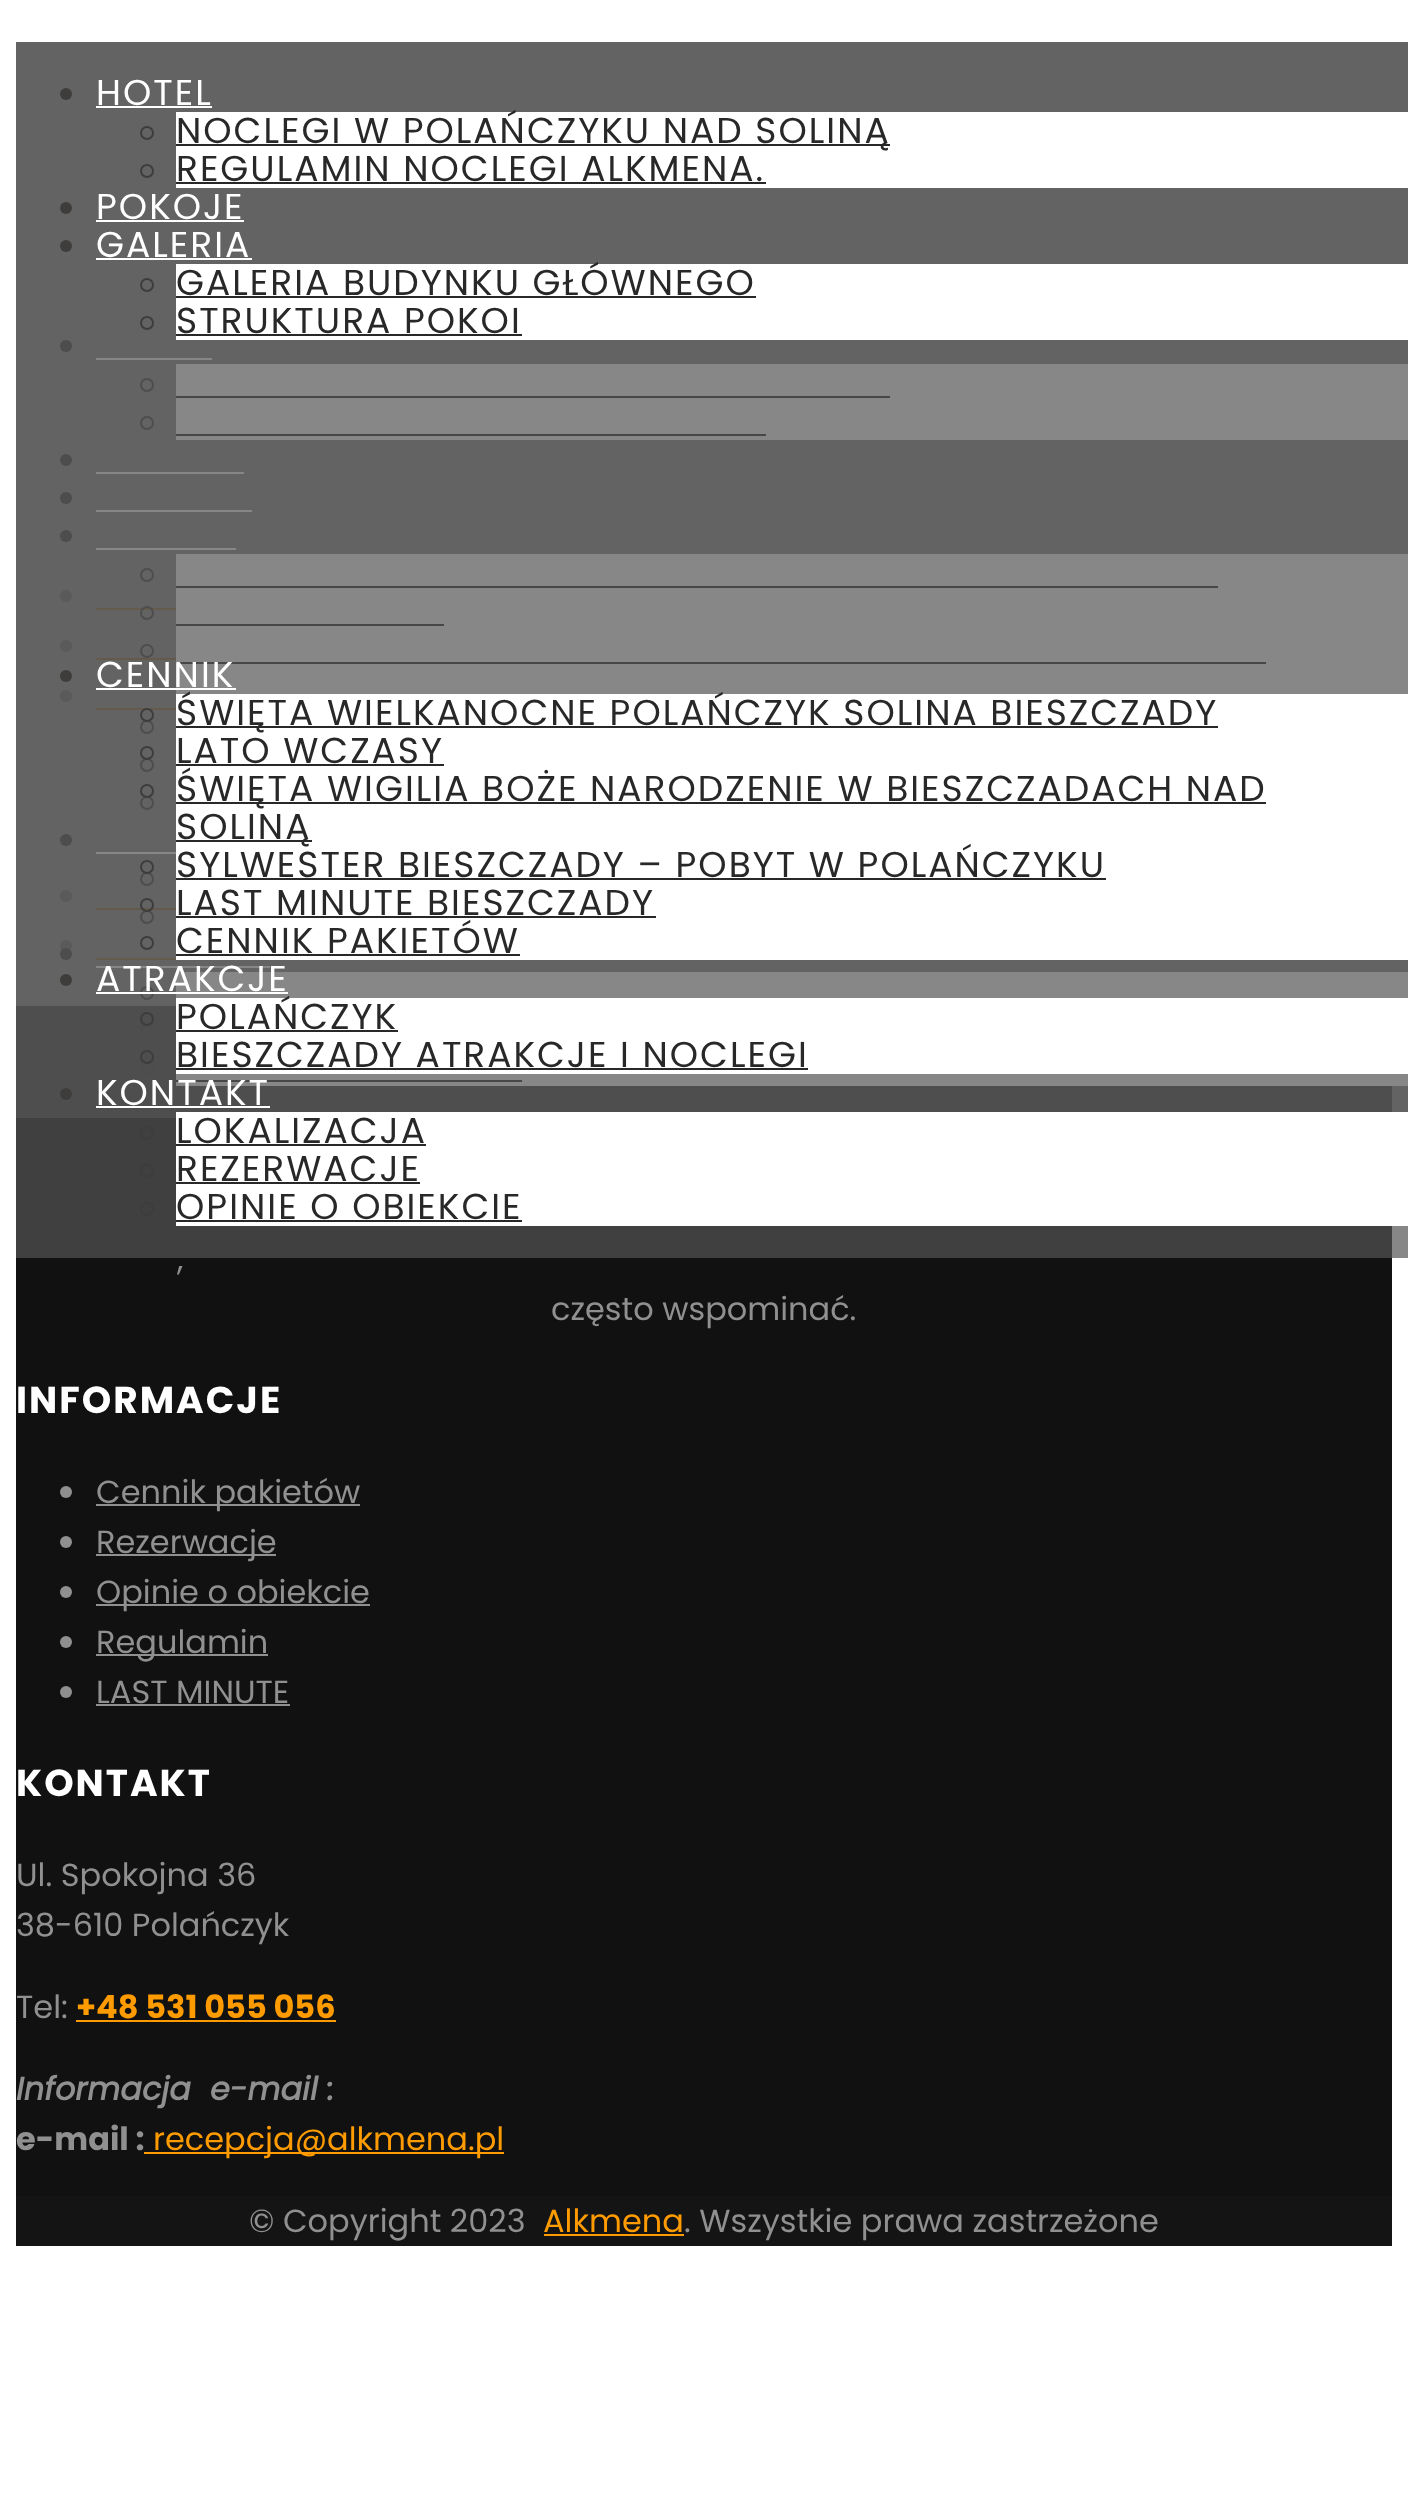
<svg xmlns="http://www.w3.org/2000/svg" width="1408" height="2506">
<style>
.a{font:36px Poppins;letter-spacing:2px;fill:#fff}
.b{font:36px Poppins;letter-spacing:2px;fill:#282828}
.c{font:32px Poppins;fill:#919090}
.d{font:bold 37.5px Poppins;letter-spacing:2px;fill:#fff}
.e{font:bold 32px Poppins;fill:#fe9b00}
.f{font:italic bold 32px Poppins;fill:#919090}
.g{font:bold 32px Poppins;fill:#919090}
.h{font:32px Poppins;fill:#fe9b00}
</style>
<rect width="100%" height="100%" fill="#fff"/>
<circle fill="#999" cx="66" cy="596" r="6"/>
<path fill="#fe9b00" d="M96 608h80v2H96z"/>
<circle fill="#999" cx="66" cy="646" r="6"/>
<path fill="#fe9b00" d="M96 658h80v2H96z"/>
<circle fill="#999" cx="66" cy="696" r="6"/>
<path fill="#fe9b00" d="M96 708h80v2H96z"/>
<circle fill="#999" cx="66" cy="896" r="6"/>
<path fill="#fe9b00" d="M96 908h80v2H96z"/>
<circle fill="#999" cx="66" cy="946" r="6"/>
<path fill="#fe9b00" d="M96 958h80v2H96z"/>
<path fill="#111" d="M16 1006h1376v1190H16z"/>
<path fill="#545454b3" d="M16 42h1392v1076H16z"/>
<circle fill="#3e3d3c" cx="66" cy="346" r="6"/>
<path fill="#fff" d="M96 358h116v2H96z"/>
<path fill="#fff" d="M176 364h1232v76H176z"/>
<circle fill="none" stroke="#3e3d3c" stroke-width="2" cx="147" cy="385" r="6"/>
<path fill="#282828" d="M176 396h714v2H176z"/>
<circle fill="none" stroke="#3e3d3c" stroke-width="2" cx="147" cy="423" r="6"/>
<path fill="#282828" d="M176 434h590v2H176z"/>
<circle fill="#3e3d3c" cx="66" cy="460" r="6"/>
<path fill="#fff" d="M96 472h148v2H96z"/>
<circle fill="#3e3d3c" cx="66" cy="498" r="6"/>
<path fill="#fff" d="M96 510h156v2H96z"/>
<circle fill="#3e3d3c" cx="66" cy="536" r="6"/>
<path fill="#fff" d="M96 548h140v2H96z"/>
<path fill="#fff" d="M176 554h1232v140H176z"/>
<circle fill="none" stroke="#3e3d3c" stroke-width="2" cx="147" cy="575" r="6"/>
<path fill="#282828" d="M176 586h1042v2H176z"/>
<circle fill="none" stroke="#3e3d3c" stroke-width="2" cx="147" cy="613" r="6"/>
<path fill="#282828" d="M176 624h268v2H176z"/>
<circle fill="none" stroke="#3e3d3c" stroke-width="2" cx="147" cy="651" r="6"/>
<path fill="#282828" d="M176 662h1090v2H176z"/>
<circle fill="none" stroke="#3e3d3c" stroke-width="2" cx="147" cy="727" r="6"/>
<circle fill="none" stroke="#3e3d3c" stroke-width="2" cx="147" cy="765" r="6"/>
<circle fill="none" stroke="#3e3d3c" stroke-width="2" cx="147" cy="803" r="6"/>
<circle fill="#3e3d3c" cx="66" cy="840" r="6"/>
<path fill="#fff" d="M96 852h80v2H96z"/>
<circle fill="none" stroke="#3e3d3c" stroke-width="2" cx="147" cy="879" r="6"/>
<circle fill="none" stroke="#3e3d3c" stroke-width="2" cx="147" cy="917" r="6"/>
<circle fill="#3e3d3c" cx="66" cy="954" r="6"/>
<path fill="#fff" d="M96 966h174v2H96z"/>
<path fill="#fff" d="M176 972h1232v26H176z"/>
<circle fill="none" stroke="#3e3d3c" stroke-width="2" cx="147" cy="993" r="6"/>
<circle fill="none" stroke="#3e3d3c" stroke-width="2" cx="147" cy="1031" r="6"/>
<path fill="#fff" d="M176 1074h1232v12H176z"/>
<circle fill="none" stroke="#3e3d3c" stroke-width="2" cx="147" cy="1069" r="6"/>
<path fill="#282828" d="M176 1080h346v2H176z"/>
<path fill="#545454b3" d="M16 42h1392v1216H16z"/>
<circle fill="#3e3d3c" cx="66" cy="94" r="6"/>
<path fill="#fff" d="M96 106h116v2H96z"/>
<path fill="#fff" d="M176 112h1232v76H176z"/>
<circle fill="none" stroke="#3e3d3c" stroke-width="2" cx="147" cy="133" r="6"/>
<path fill="#282828" d="M176 144h714v2H176z"/>
<circle fill="none" stroke="#3e3d3c" stroke-width="2" cx="147" cy="171" r="6"/>
<path fill="#282828" d="M176 182h590v2H176z"/>
<circle fill="#3e3d3c" cx="66" cy="208" r="6"/>
<path fill="#fff" d="M96 220h148v2H96z"/>
<circle fill="#3e3d3c" cx="66" cy="246" r="6"/>
<path fill="#fff" d="M96 258h156v2H96z"/>
<path fill="#fff" d="M176 264h1232v76H176z"/>
<circle fill="none" stroke="#3e3d3c" stroke-width="2" cx="147" cy="285" r="6"/>
<path fill="#282828" d="M176 296h580v2H176z"/>
<circle fill="none" stroke="#3e3d3c" stroke-width="2" cx="147" cy="323" r="6"/>
<path fill="#282828" d="M176 334h346v2H176z"/>
<circle fill="#3e3d3c" cx="66" cy="676" r="6"/>
<path fill="#fff" d="M96 688h140v2H96z"/>
<path fill="#fff" d="M176 694h1232v266H176z"/>
<circle fill="none" stroke="#3e3d3c" stroke-width="2" cx="147" cy="715" r="6"/>
<path fill="#282828" d="M176 726h1042v2H176z"/>
<circle fill="none" stroke="#3e3d3c" stroke-width="2" cx="147" cy="753" r="6"/>
<path fill="#282828" d="M176 764h268v2H176z"/>
<circle fill="none" stroke="#3e3d3c" stroke-width="2" cx="147" cy="791" r="6"/>
<path fill="#282828" d="M176 802h1090v2H176z"/>
<path fill="#282828" d="M176 840h136v2H176z"/>
<circle fill="none" stroke="#3e3d3c" stroke-width="2" cx="147" cy="867" r="6"/>
<path fill="#282828" d="M176 878h930v2H176z"/>
<circle fill="none" stroke="#3e3d3c" stroke-width="2" cx="147" cy="905" r="6"/>
<path fill="#282828" d="M176 916h480v2H176z"/>
<circle fill="none" stroke="#3e3d3c" stroke-width="2" cx="147" cy="943" r="6"/>
<path fill="#282828" d="M176 954h344v2H176z"/>
<circle fill="#3e3d3c" cx="66" cy="980" r="6"/>
<path fill="#fff" d="M96 992h192v2H96z"/>
<path fill="#fff" d="M176 998h1232v76H176z"/>
<circle fill="none" stroke="#3e3d3c" stroke-width="2" cx="147" cy="1019" r="6"/>
<path fill="#282828" d="M176 1030h222v2H176z"/>
<circle fill="none" stroke="#3e3d3c" stroke-width="2" cx="147" cy="1057" r="6"/>
<path fill="#282828" d="M176 1068h632v2H176z"/>
<circle fill="#3e3d3c" cx="66" cy="1094" r="6"/>
<path fill="#fff" d="M96 1106h174v2H96z"/>
<path fill="#fff" d="M176 1112h1232v114H176z"/>
<circle fill="none" stroke="#3e3d3c" stroke-width="2" cx="147" cy="1133" r="6"/>
<path fill="#282828" d="M176 1144h250v2H176z"/>
<circle fill="none" stroke="#3e3d3c" stroke-width="2" cx="147" cy="1171" r="6"/>
<path fill="#282828" d="M176 1182h244v2H176z"/>
<circle fill="none" stroke="#3e3d3c" stroke-width="2" cx="147" cy="1209" r="6"/>
<path fill="#282828" d="M176 1220h346v2H176z"/>
<circle fill="#919090" cx="66" cy="1492" r="6"/>
<path fill="#919090" d="M96 1504h264v2H96z"/>
<circle fill="#919090" cx="66" cy="1542" r="6"/>
<path fill="#919090" d="M96 1554h180v2H96z"/>
<circle fill="#919090" cx="66" cy="1592" r="6"/>
<path fill="#919090" d="M96 1604h274v2H96z"/>
<circle fill="#919090" cx="66" cy="1642" r="6"/>
<path fill="#919090" d="M96 1654h172v2H96z"/>
<circle fill="#919090" cx="66" cy="1692" r="6"/>
<path fill="#919090" d="M96 1704h194v2H96z"/>
<path fill="#fe9b00" d="M76 2020h260v2H76z"/>
<path fill="#fe9b00" d="M144 2152h360v2H144z"/>
<path fill="#141414" d="M16 2196h1376v50H16z"/>
<path fill="#fe9b00" d="M544 2234h140v2H544z"/>
<text class="a" x="96" y="105">HOTEL</text>
<text class="b" x="176" y="143">NOCLEGI W POLAŃCZYKU NAD SOLINĄ</text>
<text class="b" x="176" y="181">REGULAMIN NOCLEGI ALKMENA.</text>
<text class="a" x="96" y="219">POKOJE</text>
<text class="a" x="96" y="257">GALERIA</text>
<text class="b" x="176" y="295">GALERIA BUDYNKU GŁÓWNEGO</text>
<text class="b" x="176" y="333">STRUKTURA POKOI</text>
<text class="a" x="96" y="687">CENNIK</text>
<text class="b" x="176" y="725">ŚWIĘTA WIELKANOCNE POLAŃCZYK SOLINA BIESZCZADY</text>
<text class="b" x="176" y="763">LATO WCZASY</text>
<text class="b" x="176" y="801">ŚWIĘTA WIGILIA BOŻE NARODZENIE W BIESZCZADACH NAD</text>
<text class="b" x="176" y="839">SOLINĄ</text>
<text class="b" x="176" y="877">SYLWESTER BIESZCZADY – POBYT W POLAŃCZYKU</text>
<text class="b" x="176" y="915">LAST MINUTE BIESZCZADY</text>
<text class="b" x="176" y="953">CENNIK PAKIETÓW</text>
<text class="a" x="96" y="991">ATRAKCJE</text>
<text class="b" x="176" y="1029">POLAŃCZYK</text>
<text class="b" x="176" y="1067">BIESZCZADY ATRAKCJE I NOCLEGI</text>
<text class="a" x="96" y="1105">KONTAKT</text>
<text class="b" x="176" y="1143">LOKALIZACJA</text>
<text class="b" x="176" y="1181">REZERWACJE</text>
<text class="b" x="176" y="1219">OPINIE O OBIEKCIE</text>
<text class="c" x="177" y="1270">,</text>
<text class="c" x="551" y="1320">często wspominać.</text>
<text class="d" x="16" y="1413">INFORMACJE</text>
<text class="c" x="96" y="1503">Cennik pakietów</text>
<text class="c" x="96" y="1553">Rezerwacje</text>
<text class="c" x="96" y="1603">Opinie o obiekcie</text>
<text class="c" x="96" y="1653">Regulamin</text>
<text class="c" x="96" y="1703">LAST MINUTE</text>
<text class="d" x="16" y="1796">KONTAKT</text>
<text class="c" x="16" y="1886">Ul. Spokojna 36</text>
<text class="c" x="16" y="1936">38-610 Polańczyk</text>
<text class="c" x="16" y="2018">Tel:</text>
<text class="e" x="76" y="2018">+48 531 055 056</text>
<text class="f" xml:space="preserve" x="16" y="2100">Informacja  e-mail :</text>
<text class="g" x="16" y="2150">e-mail :</text>
<text class="h" x="153" y="2150">recepcja@alkmena.pl</text>
<text class="c" x="249" y="2232">© Copyright 2023</text>
<text class="h" x="543" y="2232">Alkmena</text>
<text class="c" x="684" y="2232">. Wszystkie prawa zastrzeżone</text>
</svg>
